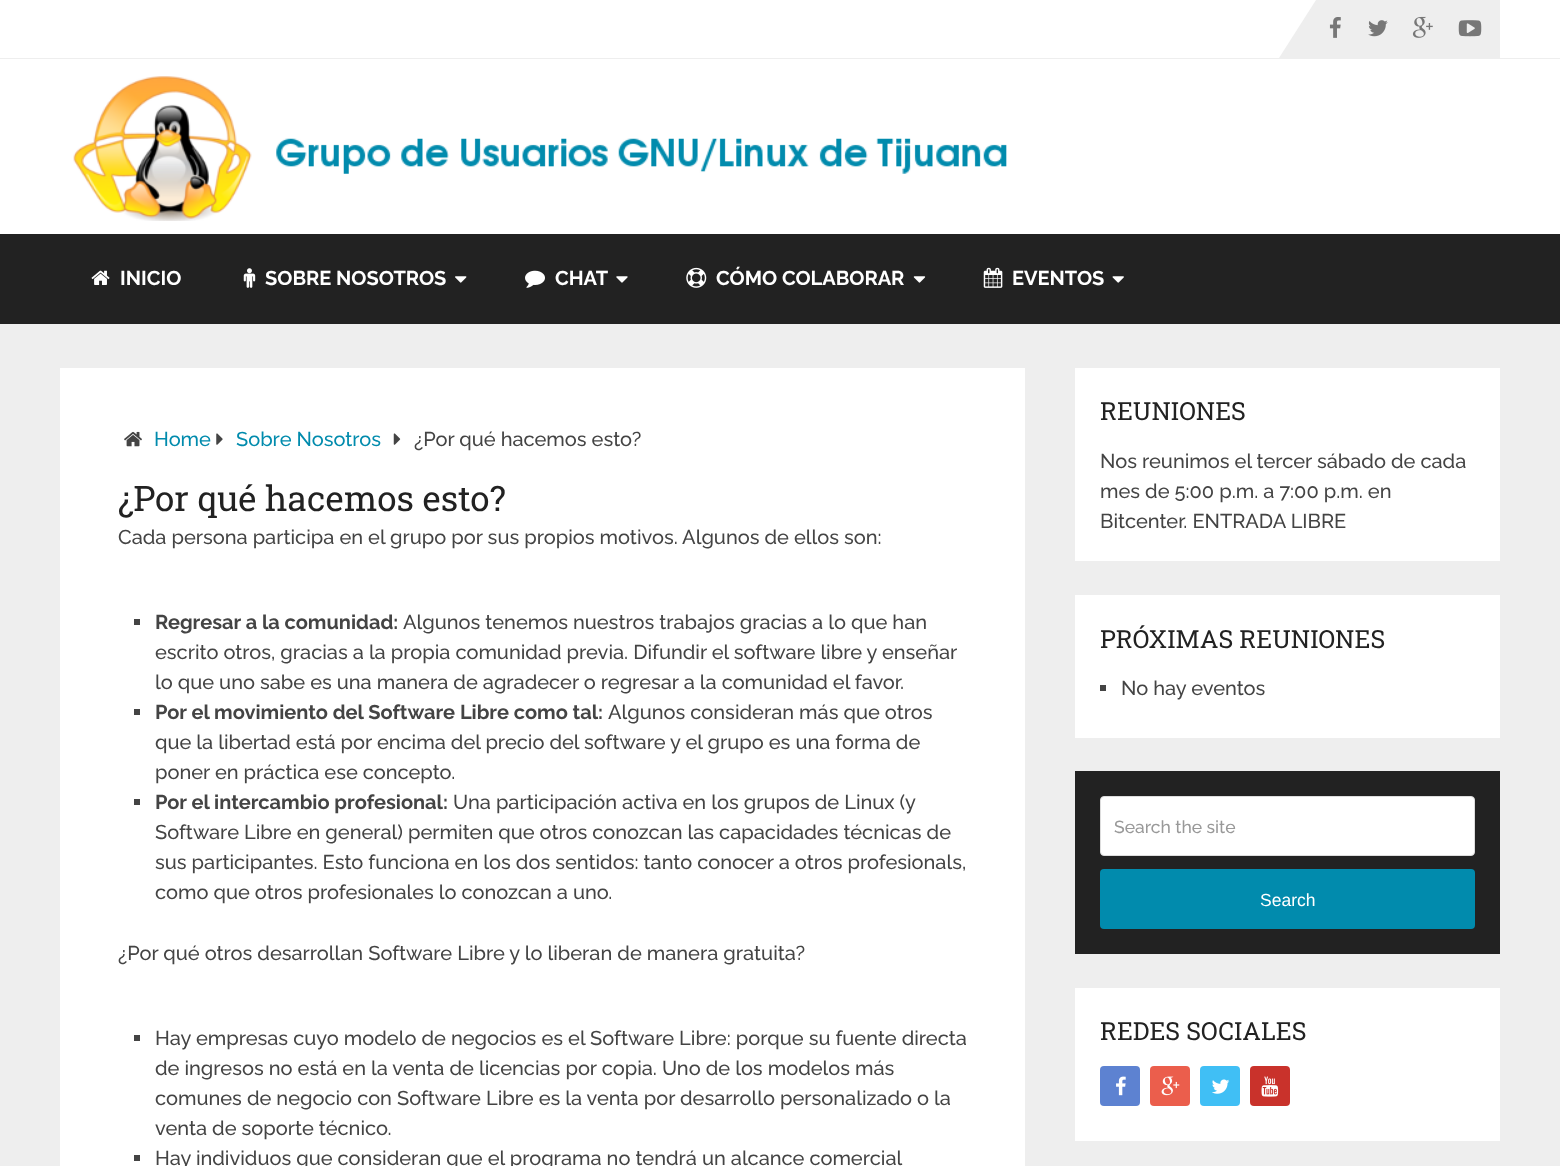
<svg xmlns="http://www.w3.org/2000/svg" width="1560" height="1166">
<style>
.a{font:bold 20px Raleway;fill:#fff}
.b{font:500 20px Raleway;fill:#018bad}
.c{font:500 20px Raleway;fill:#444}
.d{font:35px Roboto Slab;fill:#222}
.e{font:bold 20px Raleway;fill:#444}
.f{font:25px Roboto Slab;fill:#222}
.g{font:500 17.5px Raleway;fill:#999}
.h{font:17.5px Liberation Sans;fill:#fff}
</style>
<rect width="100%" height="100%" fill="#eee"/>
<path fill="#fff" d="M0 0h1560v234H0z"/>
<path fill="#eee" d="M0 58h1560v1H0z"/>
<path fill="#eee" d="M1316 0h184v58H1316z"/>
<path fill="#eee" d="M1316 0v58h-37z"/>
<image href="1.png" x="1329" y="17" width="12" height="21"/>
<image href="2.png" x="1368" y="20" width="20" height="17"/>
<image href="3.png" x="1412" y="16" width="21" height="22"/>
<image href="4.png" x="1458" y="20" width="24" height="17"/>
<image href="5.png" x="73" y="76" width="934" height="145"/>
<path fill="#222" d="M0 234h1560v90H0z"/>
<image href="6.png" x="91" y="270" width="19" height="15"/>
<image href="7.png" x="243" y="268" width="13" height="20"/>
<image href="8.png" x="455" y="276" width="12" height="7"/>
<image href="9.png" x="525" y="270" width="20" height="18"/>
<image href="10.png" x="616" y="276" width="12" height="7"/>
<image href="11.png" x="686" y="267" width="21" height="21"/>
<image href="12.png" x="913" y="276" width="13" height="7"/>
<image href="13.png" x="983" y="267" width="20" height="21"/>
<image href="14.png" x="1112" y="276" width="12" height="7"/>
<path fill="#fff" d="M60 368h965v798H60z"/>
<image href="15.png" x="124" y="431" width="18" height="16"/>
<image href="16.png" x="216" y="433" width="7" height="12"/>
<image href="17.png" x="393" y="433" width="8" height="12"/>
<path fill="#444" d="M134 619h6v6H134z"/>
<path fill="#444" d="M134 709h6v6H134z"/>
<path fill="#444" d="M134 799h6v6H134z"/>
<path fill="#444" d="M134 1035h6v6H134z"/>
<path fill="#444" d="M134 1155h6v6H134z"/>
<path fill="#fff" d="M1075 368h425v193H1075z"/>
<path fill="#fff" d="M1075 595h425v143H1075z"/>
<path fill="#444" d="M1100 685h6v6H1100z"/>
<path fill="#222" d="M1075 771h425v183H1075z"/>
<rect fill="#fff" stroke="#ddd" x="1100.5" y="796.5" width="374" height="59" rx="3.5"/>
<rect fill="#018bad" x="1100" y="869" width="375" height="60" rx="4"/>
<path fill="#fff" d="M1075 988h425v153H1075z"/>
<rect fill="#5d82d1" x="1100" y="1066" width="40" height="40" rx="4"/>
<image href="18.png" x="1116" y="1076" width="10" height="20"/>
<rect fill="#eb5e4c" x="1150" y="1066" width="40" height="40" rx="4"/>
<image href="19.png" x="1161" y="1076" width="19" height="20"/>
<rect fill="#40bff5" x="1200" y="1066" width="40" height="40" rx="4"/>
<image href="20.png" x="1212" y="1079" width="18" height="15"/>
<rect fill="#c9322b" x="1250" y="1066" width="40" height="40" rx="4"/>
<image href="21.png" x="1261" y="1076" width="18" height="21"/>
<text class="a" x="120" y="285">INICIO</text>
<text class="a" x="265" y="285">SOBRE NOSOTROS</text>
<text class="a" x="555" y="285">CHAT</text>
<text class="a" x="716" y="285">CÓMO COLABORAR</text>
<text class="a" x="1012" y="285">EVENTOS</text>
<text class="b" x="154" y="446">Home</text>
<text class="b" x="236" y="446">Sobre Nosotros</text>
<text class="c" x="414" y="446">¿Por qué hacemos esto?</text>
<text class="d" x="118" y="511">¿Por qué hacemos esto?</text>
<text class="c" x="118" y="544">Cada persona participa en el grupo por sus propios motivos. Algunos de ellos son:</text>
<text class="e" x="155" y="629">Regresar a la comunidad:</text>
<text class="c" x="403" y="629">Algunos tenemos nuestros trabajos gracias a lo que han</text>
<text class="c" x="155" y="659">escrito otros, gracias a la propia comunidad previa. Difundir el software libre y enseñar</text>
<text class="c" x="155" y="689">lo que uno sabe es una manera de agradecer o regresar a la comunidad el favor.</text>
<text class="e" x="155" y="719">Por el movimiento del Software Libre como tal:</text>
<text class="c" x="608" y="719">Algunos consideran más que otros</text>
<text class="c" x="155" y="749">que la libertad está por encima del precio del software y el grupo es una forma de</text>
<text class="c" x="155" y="779">poner en práctica ese concepto.</text>
<text class="e" x="155" y="809">Por el intercambio profesional:</text>
<text class="c" x="453" y="809">Una participación activa en los grupos de Linux (y</text>
<text class="c" x="155" y="839">Software Libre en general) permiten que otros conozcan las capacidades técnicas de</text>
<text class="c" x="155" y="869">sus participantes. Esto funciona en los dos sentidos: tanto conocer a otros profesionals,</text>
<text class="c" x="155" y="899">como que otros profesionales lo conozcan a uno.</text>
<text class="c" x="118" y="960">¿Por qué otros desarrollan Software Libre y lo liberan de manera gratuita?</text>
<text class="c" x="155" y="1045">Hay empresas cuyo modelo de negocios es el Software Libre: porque su fuente directa</text>
<text class="c" x="155" y="1075">de ingresos no está en la venta de licencias por copia. Uno de los modelos más</text>
<text class="c" x="155" y="1105">comunes de negocio con Software Libre es la venta por desarrollo personalizado o la</text>
<text class="c" x="155" y="1135">venta de soporte técnico.</text>
<text class="c" x="155" y="1165">Hay individuos que consideran que el programa no tendrá un alcance comercial</text>
<text class="f" x="1100" y="420">REUNIONES</text>
<text class="c" x="1100" y="468">Nos reunimos el tercer sábado de cada</text>
<text class="c" x="1100" y="498">mes de 5:00 p.m. a 7:00 p.m. en</text>
<text class="c" x="1100" y="528">Bitcenter. ENTRADA LIBRE</text>
<text class="f" x="1100" y="648">PRÓXIMAS REUNIONES</text>
<text class="c" x="1121" y="695">No hay eventos</text>
<text class="g" x="1114" y="833">Search the site</text>
<text class="h" x="1260" y="906">Search</text>
<text class="f" x="1100" y="1040">REDES SOCIALES</text>
</svg>
